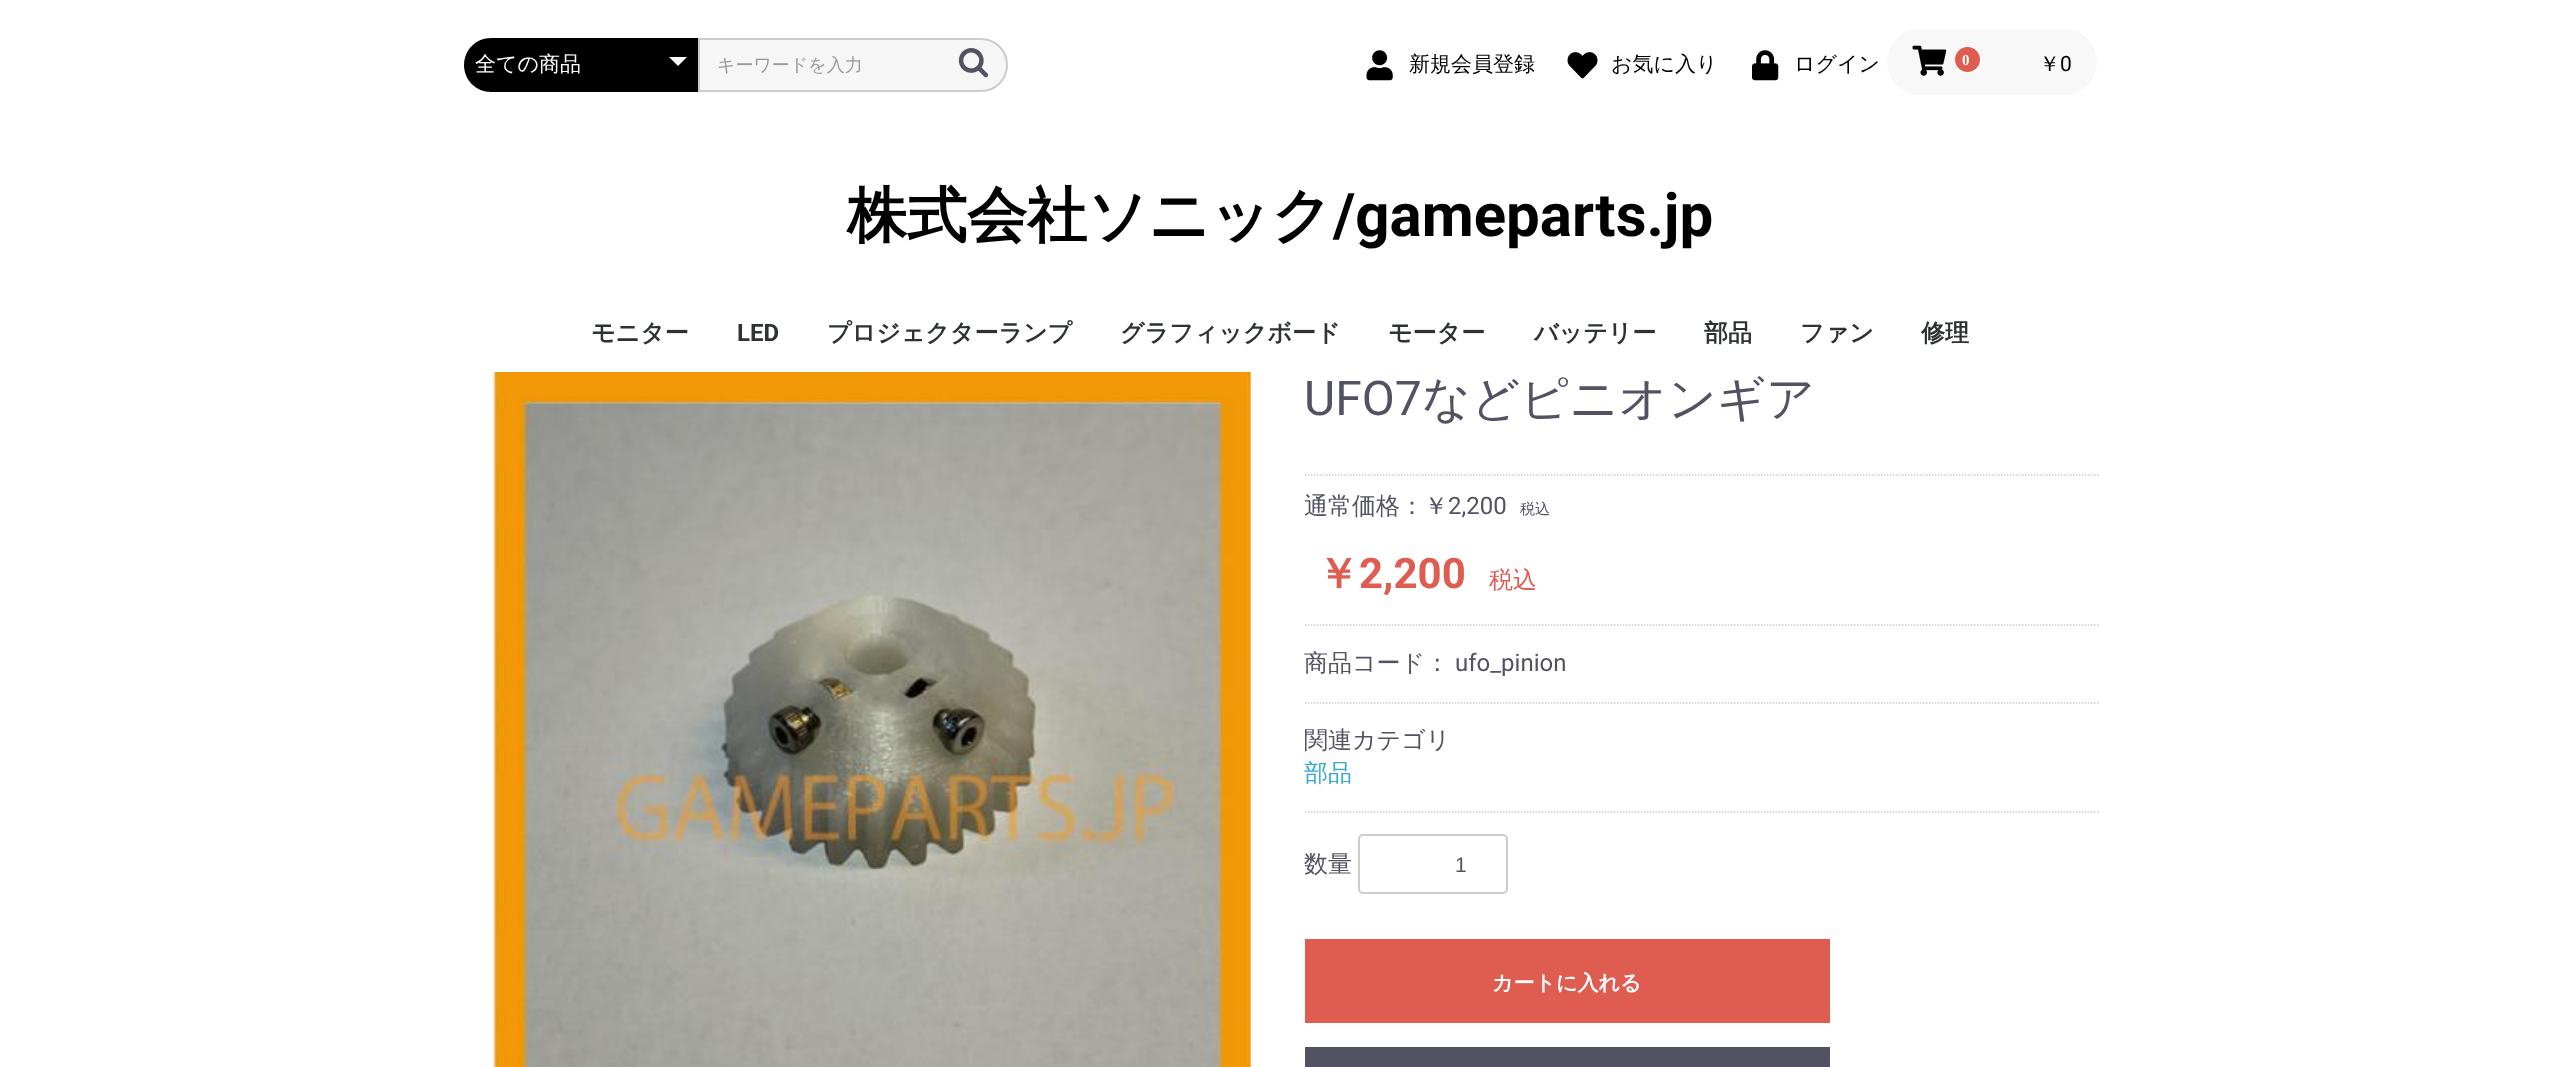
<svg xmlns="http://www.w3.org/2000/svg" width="2560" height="1067">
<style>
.a{font:500 21px WenQuanYi Zen Hei;fill:#fff}
.b{font:500 18px WenQuanYi Zen Hei;fill:#999}
.c{font:500 21px WenQuanYi Zen Hei;fill:#000}
.d{font:bold 15px Liberation Serif;fill:#fff}
.e{font:21px Roboto;fill:#000}
.f{font:bold 60px WenQuanYi Zen Hei;fill:#000}
.g{font:bold 60px Roboto;fill:#000}
.h{font:bold 24px WenQuanYi Zen Hei;fill:#2e3233}
.i{font:bold 24px Roboto;fill:#2e3233}
.j{font:48px Roboto;fill:#525263}
.k{font:500 48px WenQuanYi Zen Hei;fill:#525263}
.l{font:500 24px WenQuanYi Zen Hei;fill:#525263}
.m{font:24px Roboto;fill:#525263}
.n{font:500 15px WenQuanYi Zen Hei;fill:#525263}
.o{font:bold 42px WenQuanYi Zen Hei;fill:#de5d50}
.p{font:bold 42px Roboto;fill:#de5d50}
.q{font:500 24px WenQuanYi Zen Hei;fill:#de5d50}
.r{font:500 24px WenQuanYi Zen Hei;fill:#33a8d0}
.s{font:21px Liberation Sans;fill:#555}
.t{font:bold 21px WenQuanYi Zen Hei;fill:#fff}
</style>
<rect width="100%" height="100%" fill="#fff"/>
<path fill="#000" d="M491 38h207v54h-207c-15 0-27-12-27-27c0-15 12-27 27-27z"/>
<path fill="#fff" d="M669 57h18l-9 9z"/>
<path fill="#f6f6f6" stroke="#ccc" stroke-width="2" d="M699 39h282c14.5 0 26 11.5 26 26c0 14.5-11.5 26-26 26h-282z"/>
<image href="1.png" x="958" y="48" width="31" height="30"/>
<image href="2.png" x="1366" y="50" width="27" height="31"/>
<image href="3.png" x="1567" y="52" width="31" height="27"/>
<image href="4.png" x="1752" y="50" width="27" height="31"/>
<rect fill="#f8f8f8" x="1887" y="29" width="210" height="66" rx="33"/>
<image href="5.png" x="1912" y="45" width="35" height="31"/>
<circle fill="#de5d50" cx="1967.5" cy="59.5" r="12.5"/>
<image href="6.png" x="493" y="372" width="758" height="695"/>
<path fill="none" stroke="#ccc" stroke-width="1.5" stroke-dasharray="1.5 1.5" d="M1305 475h793.5"/>
<path fill="none" stroke="#ccc" stroke-width="1.5" stroke-dasharray="1.5 1.5" d="M1305 625h793.5"/>
<path fill="none" stroke="#ccc" stroke-width="1.5" stroke-dasharray="1.5 1.5" d="M1305 703h793.5"/>
<path fill="none" stroke="#ccc" stroke-width="1.5" stroke-dasharray="1.5 1.5" d="M1305 812h793.5"/>
<rect fill="none" stroke="#ccc" stroke-width="2" x="1359" y="835" width="148" height="58" rx="4"/>
<path fill="#de5d50" d="M1305 939h525v84H1305z"/>
<path fill="#525263" d="M1305 1047h525v20H1305z"/>
<text class="a" x="475" y="71">全ての商品</text>
<text class="b" x="717" y="71">キーワードを入力</text>
<text class="c" x="1409" y="71">新規会員登録</text>
<text class="c" x="1611" y="71">お気に入り</text>
<text class="c" x="1794" y="71">ログイン</text>
<text class="d" x="1962" y="65">0</text>
<text class="c" x="2039" y="71">￥</text>
<text class="e" x="2060" y="71">0</text>
<text class="f" x="847" y="236">株式会社ソニック</text>
<text class="g" x="1333" y="236">/gameparts.jp</text>
<text class="h" x="591" y="341">モニター</text>
<text class="i" x="737" y="341">LED</text>
<text class="h" x="827" y="341">プロジェクターランプ</text>
<text class="h" x="1120" y="341">グラフィックボード</text>
<text class="h" x="1388" y="341">モーター</text>
<text class="h" x="1534" y="341">バッテリー</text>
<text class="h" x="1704" y="341">部品</text>
<text class="h" x="1800" y="341">ファン</text>
<text class="h" x="1921" y="341">修理</text>
<text class="j" x="1304" y="415">UFO7</text>
<text class="k" x="1422" y="415">などピニオンギア</text>
<text class="l" x="1304" y="514">通常価格：￥</text>
<text class="m" x="1448" y="514">2,200</text>
<text class="n" x="1520" y="514">税込</text>
<text class="o" x="1317" y="588">￥</text>
<text class="p" x="1359" y="588">2,200</text>
<text class="q" x="1489" y="588">税込</text>
<text class="l" x="1304" y="671">商品コード：</text>
<text class="m" x="1455" y="671">ufo_pinion</text>
<text class="l" x="1304" y="748">関連カテゴリ</text>
<text class="r" x="1304" y="781">部品</text>
<text class="l" x="1304" y="872">数量</text>
<text class="s" x="1455" y="872">1</text>
<text class="t" x="1492" y="990">カートに入れる</text>
</svg>
